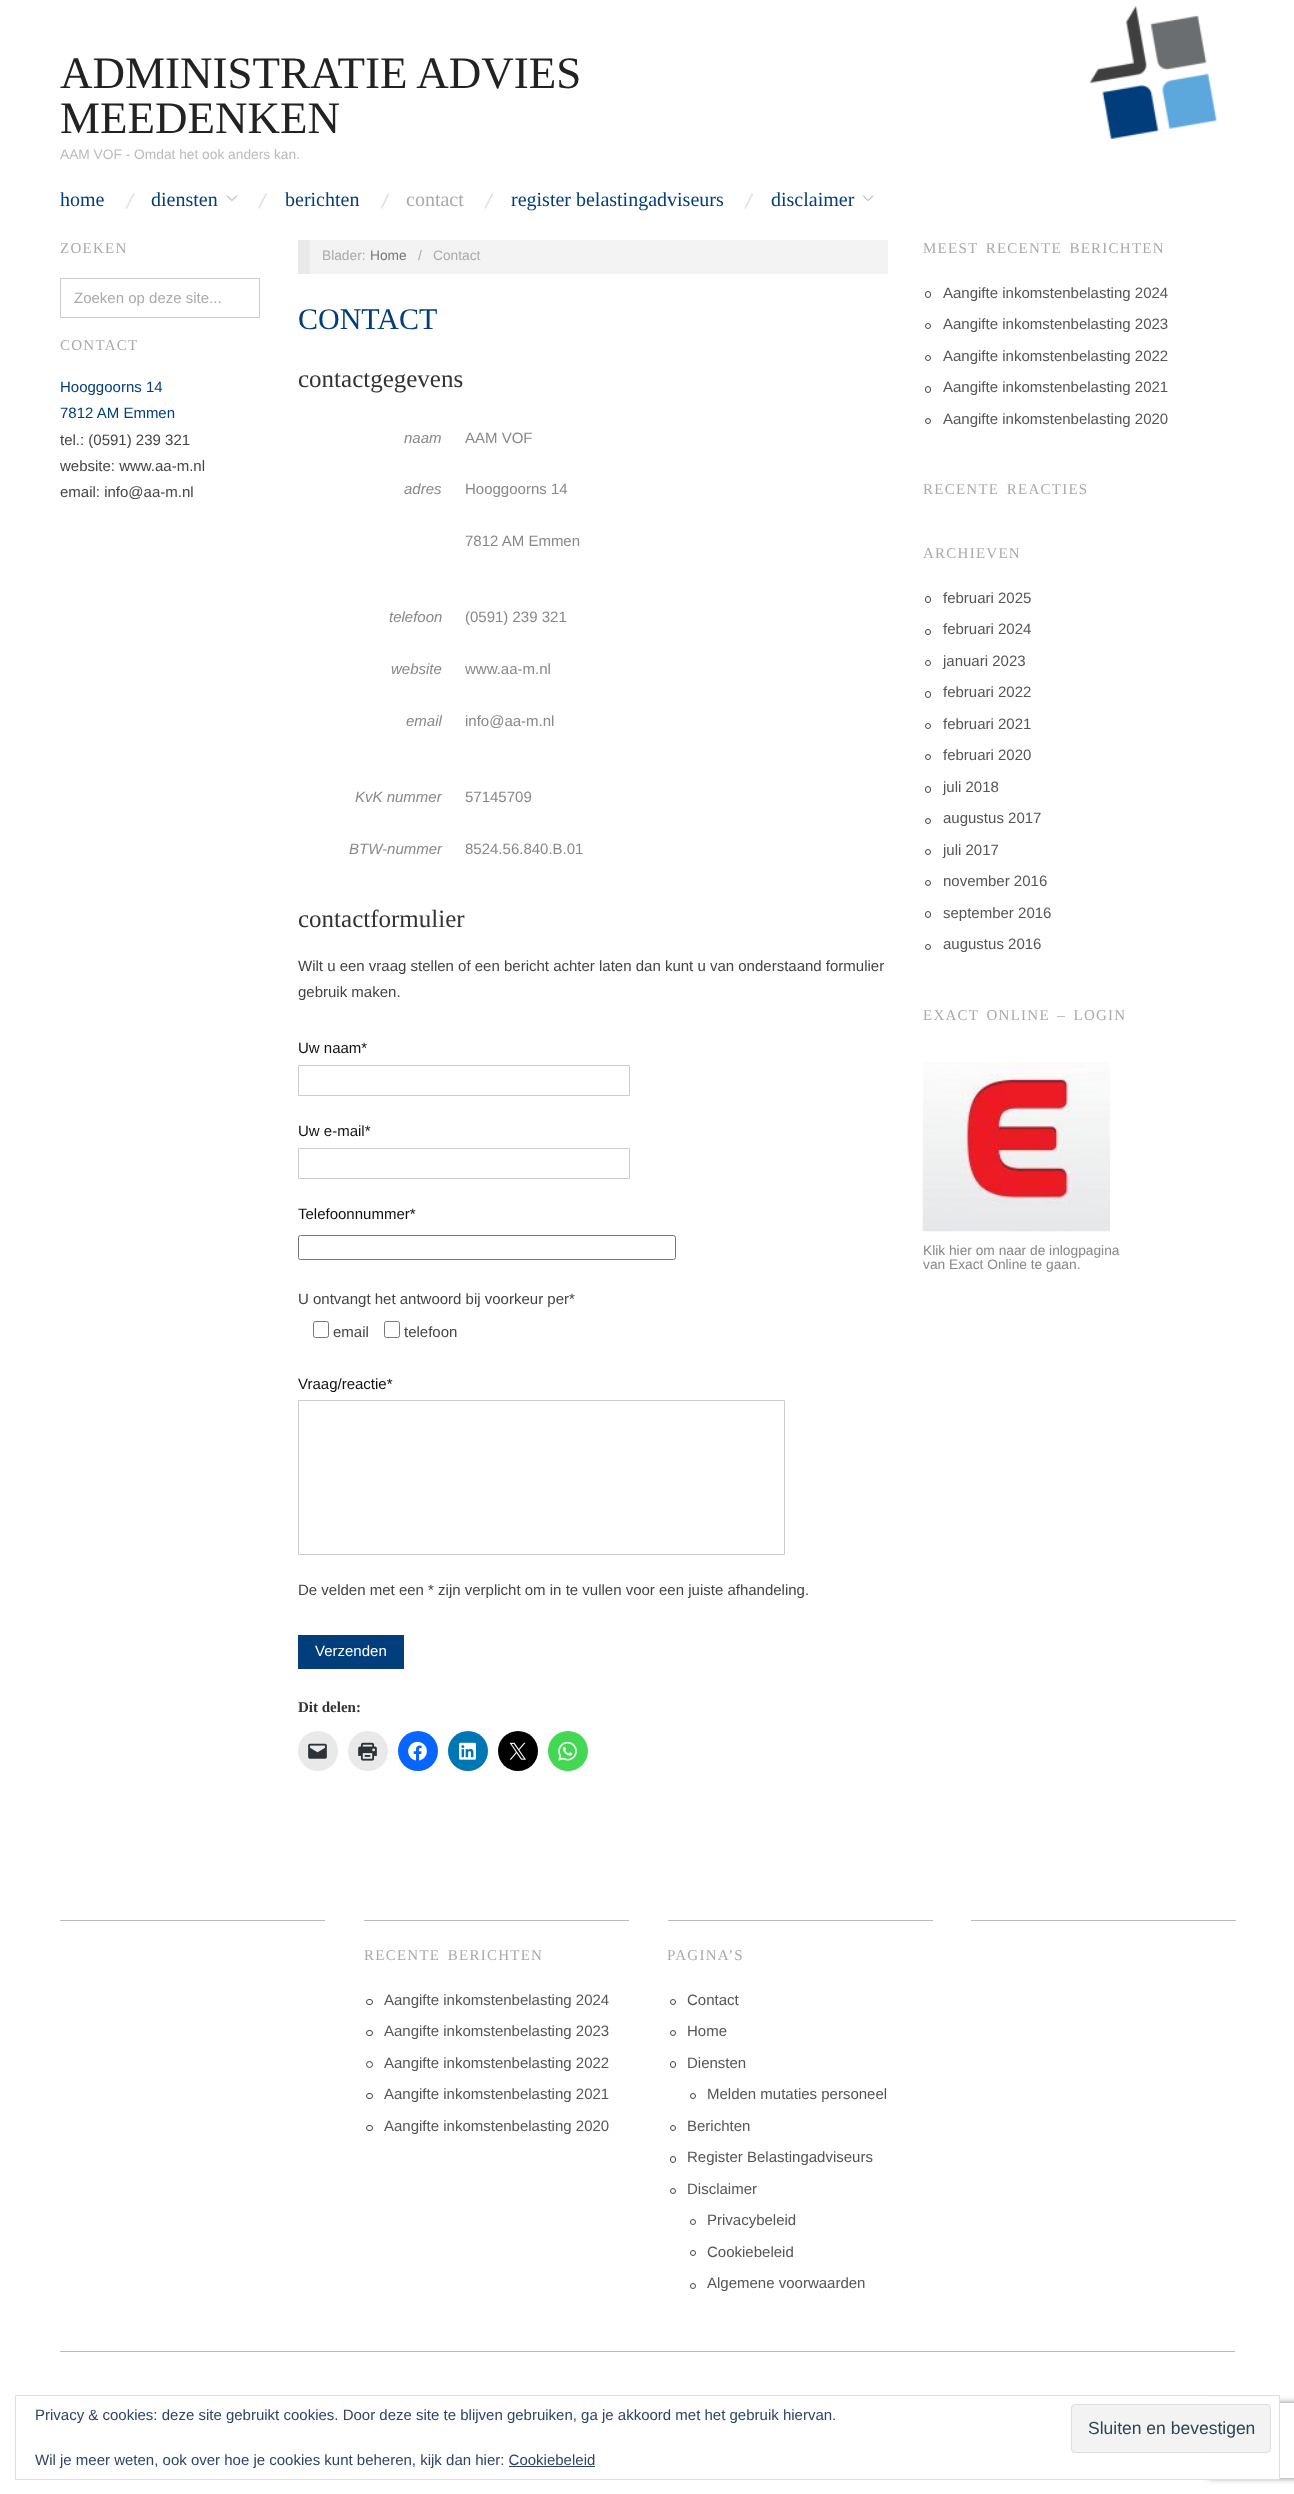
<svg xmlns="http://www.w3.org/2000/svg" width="1294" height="2494">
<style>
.a{font:45px Liberation Serif;fill:#222}
.b{font:13.75px Liberation Sans;fill:#bbb}
.c{font:20px Liberation Serif;fill:#013e7b}
.d{font:20px Liberation Serif;fill:#aaa}
.e{font:15px Liberation Serif;letter-spacing:1.25px;fill:#aaa}
.f{font:15px Liberation Sans;fill:#aaa}
.g{font:15px Liberation Sans;fill:#013e7b}
.h{font:15px Liberation Sans;fill:#444}
.i{font:13.75px Liberation Sans;fill:#aaa}
.j{font:13.75px Liberation Sans;fill:#777}
.k{font:30px Liberation Serif;fill:#013e7b}
.l{font:25px Liberation Serif;fill:#333}
.m{font:italic 15px Liberation Sans;fill:#888}
.n{font:15px Liberation Sans;fill:#888}
.o{font:15px Liberation Sans;fill:#111}
.p{font:15px Liberation Sans;fill:#fff}
.q{font:bold 15px Liberation Serif;fill:#333}
.r{font:15px Liberation Sans;fill:#555}
.s{font:13.75px Liberation Sans;fill:#888}
.t{font:15px Liberation Sans;fill:#2e4467}
.u{font:17.5px Liberation Sans;fill:#2e4453}
</style>
<defs>
<clipPath id="clip1"><path d="M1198 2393h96v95h-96zm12.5 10h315c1.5 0 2.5 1 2.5 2.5v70c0 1.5-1 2.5-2.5 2.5h-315c-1.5 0-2.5-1-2.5-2.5v-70c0-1.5 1-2.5 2.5-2.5z" clip-rule="evenodd"/></clipPath>
</defs>
<rect width="100%" height="100%" fill="#fff"/>
<image href="1.png" x="1089" y="6" width="128" height="133"/>
<image href="2.png" x="125" y="192" width="10" height="17"/>
<image href="3.png" x="226" y="195" width="12" height="7"/>
<image href="4.png" x="258" y="193" width="9" height="16"/>
<image href="2.png" x="380" y="192" width="10" height="17"/>
<image href="5.png" x="484" y="193" width="10" height="16"/>
<image href="6.png" x="744" y="193" width="10" height="16"/>
<image href="7.png" x="862" y="195" width="12" height="7"/>
<path fill="none" stroke="#ccc" d="M60.5 278.5h199v39H60.5z"/>
<path fill="#f3f3f3" d="M310 240h578v34H310z"/>
<path fill="#e9e9e9" d="M298 240h12v34H298z"/>
<path fill="none" stroke="#ccc" d="M298.5 1065.5h331v30H298.5z"/>
<path fill="none" stroke="#ccc" d="M298.5 1148.5h331v30H298.5z"/>
<rect fill="none" stroke="#767676" x="298.5" y="1235.5" width="377" height="24" rx="2"/>
<rect fill="none" stroke="#767676" x="313.5" y="1321.5" width="15" height="16" rx="2"/>
<rect fill="none" stroke="#767676" x="384.5" y="1321.5" width="15" height="16" rx="2"/>
<path fill="none" stroke="#ccc" d="M298.5 1400.5h486v154H298.5z"/>
<path fill="#013e7b" d="M298 1635h106v34H298z"/>
<circle fill="#e9e9e9" cx="318" cy="1751" r="20"/>
<image href="8.png" x="308" y="1743" width="19" height="16"/>
<circle fill="#e9e9e9" cx="368" cy="1751" r="20"/>
<image href="9.png" x="358" y="1742" width="19" height="19"/>
<circle fill="#0866ff" cx="418" cy="1751" r="20"/>
<image href="10.png" x="408" y="1741" width="19" height="20"/>
<circle fill="#0077b5" cx="468" cy="1751" r="20"/>
<image href="11.png" x="459" y="1742" width="17" height="18"/>
<circle fill="#000" cx="518" cy="1751" r="20"/>
<image href="12.png" x="509" y="1742" width="17" height="18"/>
<circle fill="#43d854" cx="568" cy="1751" r="20"/>
<image href="13.png" x="558" y="1741" width="19" height="20"/>
<rect fill="none" stroke="#444" x="925.5" y="291.5" width="5" height="6" rx="2.5"/>
<circle fill="none" stroke="#444" cx="928" cy="326" r="2.5"/>
<circle fill="none" stroke="#444" cx="928" cy="358" r="2.5"/>
<rect fill="none" stroke="#444" x="925.5" y="386.5" width="5" height="6" rx="2.5"/>
<circle fill="none" stroke="#444" cx="928" cy="421" r="2.5"/>
<rect fill="none" stroke="#444" x="925.5" y="596.5" width="5" height="6" rx="2.5"/>
<circle fill="none" stroke="#444" cx="928" cy="632" r="2.5"/>
<circle fill="none" stroke="#444" cx="928" cy="663" r="2.5"/>
<rect fill="none" stroke="#444" x="925.5" y="691.5" width="5" height="6" rx="2.5"/>
<circle fill="none" stroke="#444" cx="928" cy="726" r="2.5"/>
<circle fill="none" stroke="#444" cx="928" cy="757" r="2.5"/>
<rect fill="none" stroke="#444" x="925.5" y="786.5" width="5" height="6" rx="2.5"/>
<circle fill="none" stroke="#444" cx="928" cy="821" r="2.5"/>
<circle fill="none" stroke="#444" cx="928" cy="852" r="2.5"/>
<circle fill="none" stroke="#444" cx="928" cy="883" r="2.5"/>
<rect fill="none" stroke="#444" x="925.5" y="911.5" width="5" height="6" rx="2.5"/>
<circle fill="none" stroke="#444" cx="928" cy="947" r="2.5"/>
<image href="14.png" x="922" y="1062" width="188" height="170"/>
<path fill="#bbb" d="M60 1920h265v1H60z"/>
<path fill="#bbb" d="M971 1920h265v1H971z"/>
<path fill="#bbb" d="M364 1920h265v1H364z"/>
<rect fill="none" stroke="#444" x="366.5" y="1999.5" width="6" height="5" rx="2.5"/>
<rect fill="none" stroke="#444" x="366.5" y="2030.5" width="6" height="5" rx="2.5"/>
<circle fill="none" stroke="#444" cx="369.5" cy="2064.5" r="3"/>
<rect fill="none" stroke="#444" x="366.5" y="2093.5" width="6" height="5" rx="2.5"/>
<rect fill="none" stroke="#444" x="366.5" y="2125.5" width="6" height="5" rx="2.5"/>
<path fill="#bbb" d="M668 1920h265v1H668z"/>
<circle fill="none" stroke="#444" cx="673" cy="2002" r="2.5"/>
<circle fill="none" stroke="#444" cx="673" cy="2033" r="2.5"/>
<rect fill="none" stroke="#444" x="670.5" y="2061.5" width="5" height="6" rx="2.5"/>
<circle fill="none" stroke="#444" cx="693" cy="2096" r="2.5"/>
<circle fill="none" stroke="#444" cx="673" cy="2128" r="2.5"/>
<rect fill="none" stroke="#444" x="670.5" y="2156.5" width="5" height="6" rx="2.5"/>
<circle fill="none" stroke="#444" cx="673" cy="2191" r="2.5"/>
<circle fill="none" stroke="#444" cx="693" cy="2222" r="2.5"/>
<circle fill="none" stroke="#444" cx="693" cy="2253" r="2.5"/>
<circle fill="none" stroke="#444" cx="693" cy="2286" r="2.5"/>
<path fill="#bbb" d="M60 2351h1175v1H60z"/>
<g clip-path="url(#clip1)">
<rect fill="#808080" filter="blur(3px)" x="1208" y="2403" width="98" height="75" rx="2.5"/>
</g>
<path fill="#fff" d="M1202 2397h77v82H1202z"/>
<path fill="none" stroke="#dedede" d="M15.5 2395.5h1264v84H15.5z"/>
<rect fill="#f3f3f3" stroke="#dedede" x="1071.5" y="2404.5" width="199" height="48" rx="3.5"/>
<path fill="#2e4467" d="M509 2466h86v1H509z"/>
<text class="a" x="60" y="88">ADMINISTRATIE ADVIES</text>
<text class="a" x="60" y="133">MEEDENKEN</text>
<text class="b" x="60" y="159">AAM VOF - Omdat het ook anders kan.</text>
<text class="c" x="60" y="206">home</text>
<text class="c" x="151" y="206">diensten</text>
<text class="c" x="285" y="206">berichten</text>
<text class="d" x="406" y="206">contact</text>
<text class="c" x="511" y="206">register belastingadviseurs</text>
<text class="c" x="771" y="206">disclaimer</text>
<text class="e" x="60" y="253">ZOEKEN</text>
<text class="f" x="74" y="303">Zoeken op deze site...</text>
<text class="e" x="60" y="350">CONTACT</text>
<text class="g" x="60" y="392">Hooggoorns 14</text>
<text class="g" x="60" y="418">7812 AM Emmen</text>
<text class="h" x="60" y="445">tel.: (0591) 239 321</text>
<text class="h" x="60" y="471">website: www.aa-m.nl</text>
<text class="h" x="60" y="497">email: info@aa-m.nl</text>
<text class="i" x="322" y="260">Blader:</text>
<text class="j" x="370" y="260">Home</text>
<text class="i" x="418" y="260">/</text>
<text class="i" x="433" y="260">Contact</text>
<text class="k" x="298" y="329">CONTACT</text>
<text class="l" x="298" y="387">contactgegevens</text>
<text class="m" x="404" y="443">naam</text>
<text class="n" x="465" y="443">AAM VOF</text>
<text class="m" x="404" y="494">adres</text>
<text class="n" x="465" y="494">Hooggoorns 14</text>
<text class="n" x="465" y="546">7812 AM Emmen</text>
<text class="m" x="389" y="622">telefoon</text>
<text class="n" x="465" y="622">(0591) 239 321</text>
<text class="m" x="391" y="674">website</text>
<text class="n" x="465" y="674">www.aa-m.nl</text>
<text class="m" x="406" y="726">email</text>
<text class="n" x="465" y="726">info@aa-m.nl</text>
<text class="m" x="355" y="802">KvK nummer</text>
<text class="n" x="465" y="802">57145709</text>
<text class="m" x="349" y="854">BTW-nummer</text>
<text class="n" x="465" y="854">8524.56.840.B.01</text>
<text class="l" x="298" y="927">contactformulier</text>
<text class="h" x="298" y="971">Wilt u een vraag stellen of een bericht achter laten dan kunt u van onderstaand formulier</text>
<text class="h" x="298" y="997">gebruik maken.</text>
<text class="o" x="298" y="1053">Uw naam*</text>
<text class="o" x="298" y="1136">Uw e-mail*</text>
<text class="o" x="298" y="1219">Telefoonnummer*</text>
<text class="h" x="298" y="1304">U ontvangt het antwoord bij voorkeur per*</text>
<text class="h" x="333" y="1337">email</text>
<text class="h" x="404" y="1337">telefoon</text>
<text class="o" x="298" y="1389">Vraag/reactie*</text>
<text class="h" x="298" y="1595">De velden met een * zijn verplicht om in te vullen voor een juiste afhandeling.</text>
<text class="p" x="315" y="1656">Verzenden</text>
<text class="q" x="298" y="1712">Dit delen:</text>
<text class="e" x="923" y="253" word-spacing="2.5">MEEST RECENTE BERICHTEN</text>
<text class="r" x="943" y="298">Aangifte inkomstenbelasting 2024</text>
<text class="r" x="943" y="329">Aangifte inkomstenbelasting 2023</text>
<text class="r" x="943" y="361">Aangifte inkomstenbelasting 2022</text>
<text class="r" x="943" y="392">Aangifte inkomstenbelasting 2021</text>
<text class="r" x="943" y="424">Aangifte inkomstenbelasting 2020</text>
<text class="e" x="923" y="494" word-spacing="2.5">RECENTE REACTIES</text>
<text class="e" x="923" y="558">ARCHIEVEN</text>
<text class="r" x="943" y="603">februari 2025</text>
<text class="r" x="943" y="634">februari 2024</text>
<text class="r" x="943" y="666">januari 2023</text>
<text class="r" x="943" y="697">februari 2022</text>
<text class="r" x="943" y="729">februari 2021</text>
<text class="r" x="943" y="760">februari 2020</text>
<text class="r" x="943" y="792">juli 2018</text>
<text class="r" x="943" y="823">augustus 2017</text>
<text class="r" x="943" y="855">juli 2017</text>
<text class="r" x="943" y="886">november 2016</text>
<text class="r" x="943" y="918">september 2016</text>
<text class="r" x="943" y="949">augustus 2016</text>
<text class="e" x="923" y="1020" word-spacing="2.5">EXACT ONLINE – LOGIN</text>
<text class="s" x="923" y="1255">Klik hier om naar de inlogpagina</text>
<text class="s" x="923" y="1269">van Exact Online te gaan.</text>
<text class="e" x="364" y="1960" word-spacing="2.5">RECENTE BERICHTEN</text>
<text class="r" x="384" y="2005">Aangifte inkomstenbelasting 2024</text>
<text class="r" x="384" y="2036">Aangifte inkomstenbelasting 2023</text>
<text class="r" x="384" y="2068">Aangifte inkomstenbelasting 2022</text>
<text class="r" x="384" y="2099">Aangifte inkomstenbelasting 2021</text>
<text class="r" x="384" y="2131">Aangifte inkomstenbelasting 2020</text>
<text class="e" x="667" y="1960">PAGINA’S</text>
<text class="r" x="687" y="2005">Contact</text>
<text class="r" x="687" y="2036">Home</text>
<text class="r" x="687" y="2068">Diensten</text>
<text class="r" x="707" y="2099">Melden mutaties personeel</text>
<text class="r" x="687" y="2131">Berichten</text>
<text class="r" x="687" y="2162">Register Belastingadviseurs</text>
<text class="r" x="687" y="2194">Disclaimer</text>
<text class="r" x="707" y="2225">Privacybeleid</text>
<text class="r" x="707" y="2257">Cookiebeleid</text>
<text class="r" x="707" y="2288">Algemene voorwaarden</text>
<text class="t" x="35" y="2420">Privacy &amp; cookies: deze site gebruikt cookies. Door deze site te blijven gebruiken, ga je akkoord met het gebruik hiervan.</text>
<text class="u" x="1088" y="2434">Sluiten en bevestigen</text>
<text class="t" x="35" y="2465">Wil je meer weten, ook over hoe je cookies kunt beheren, kijk dan hier: Cookiebeleid</text>
</svg>
